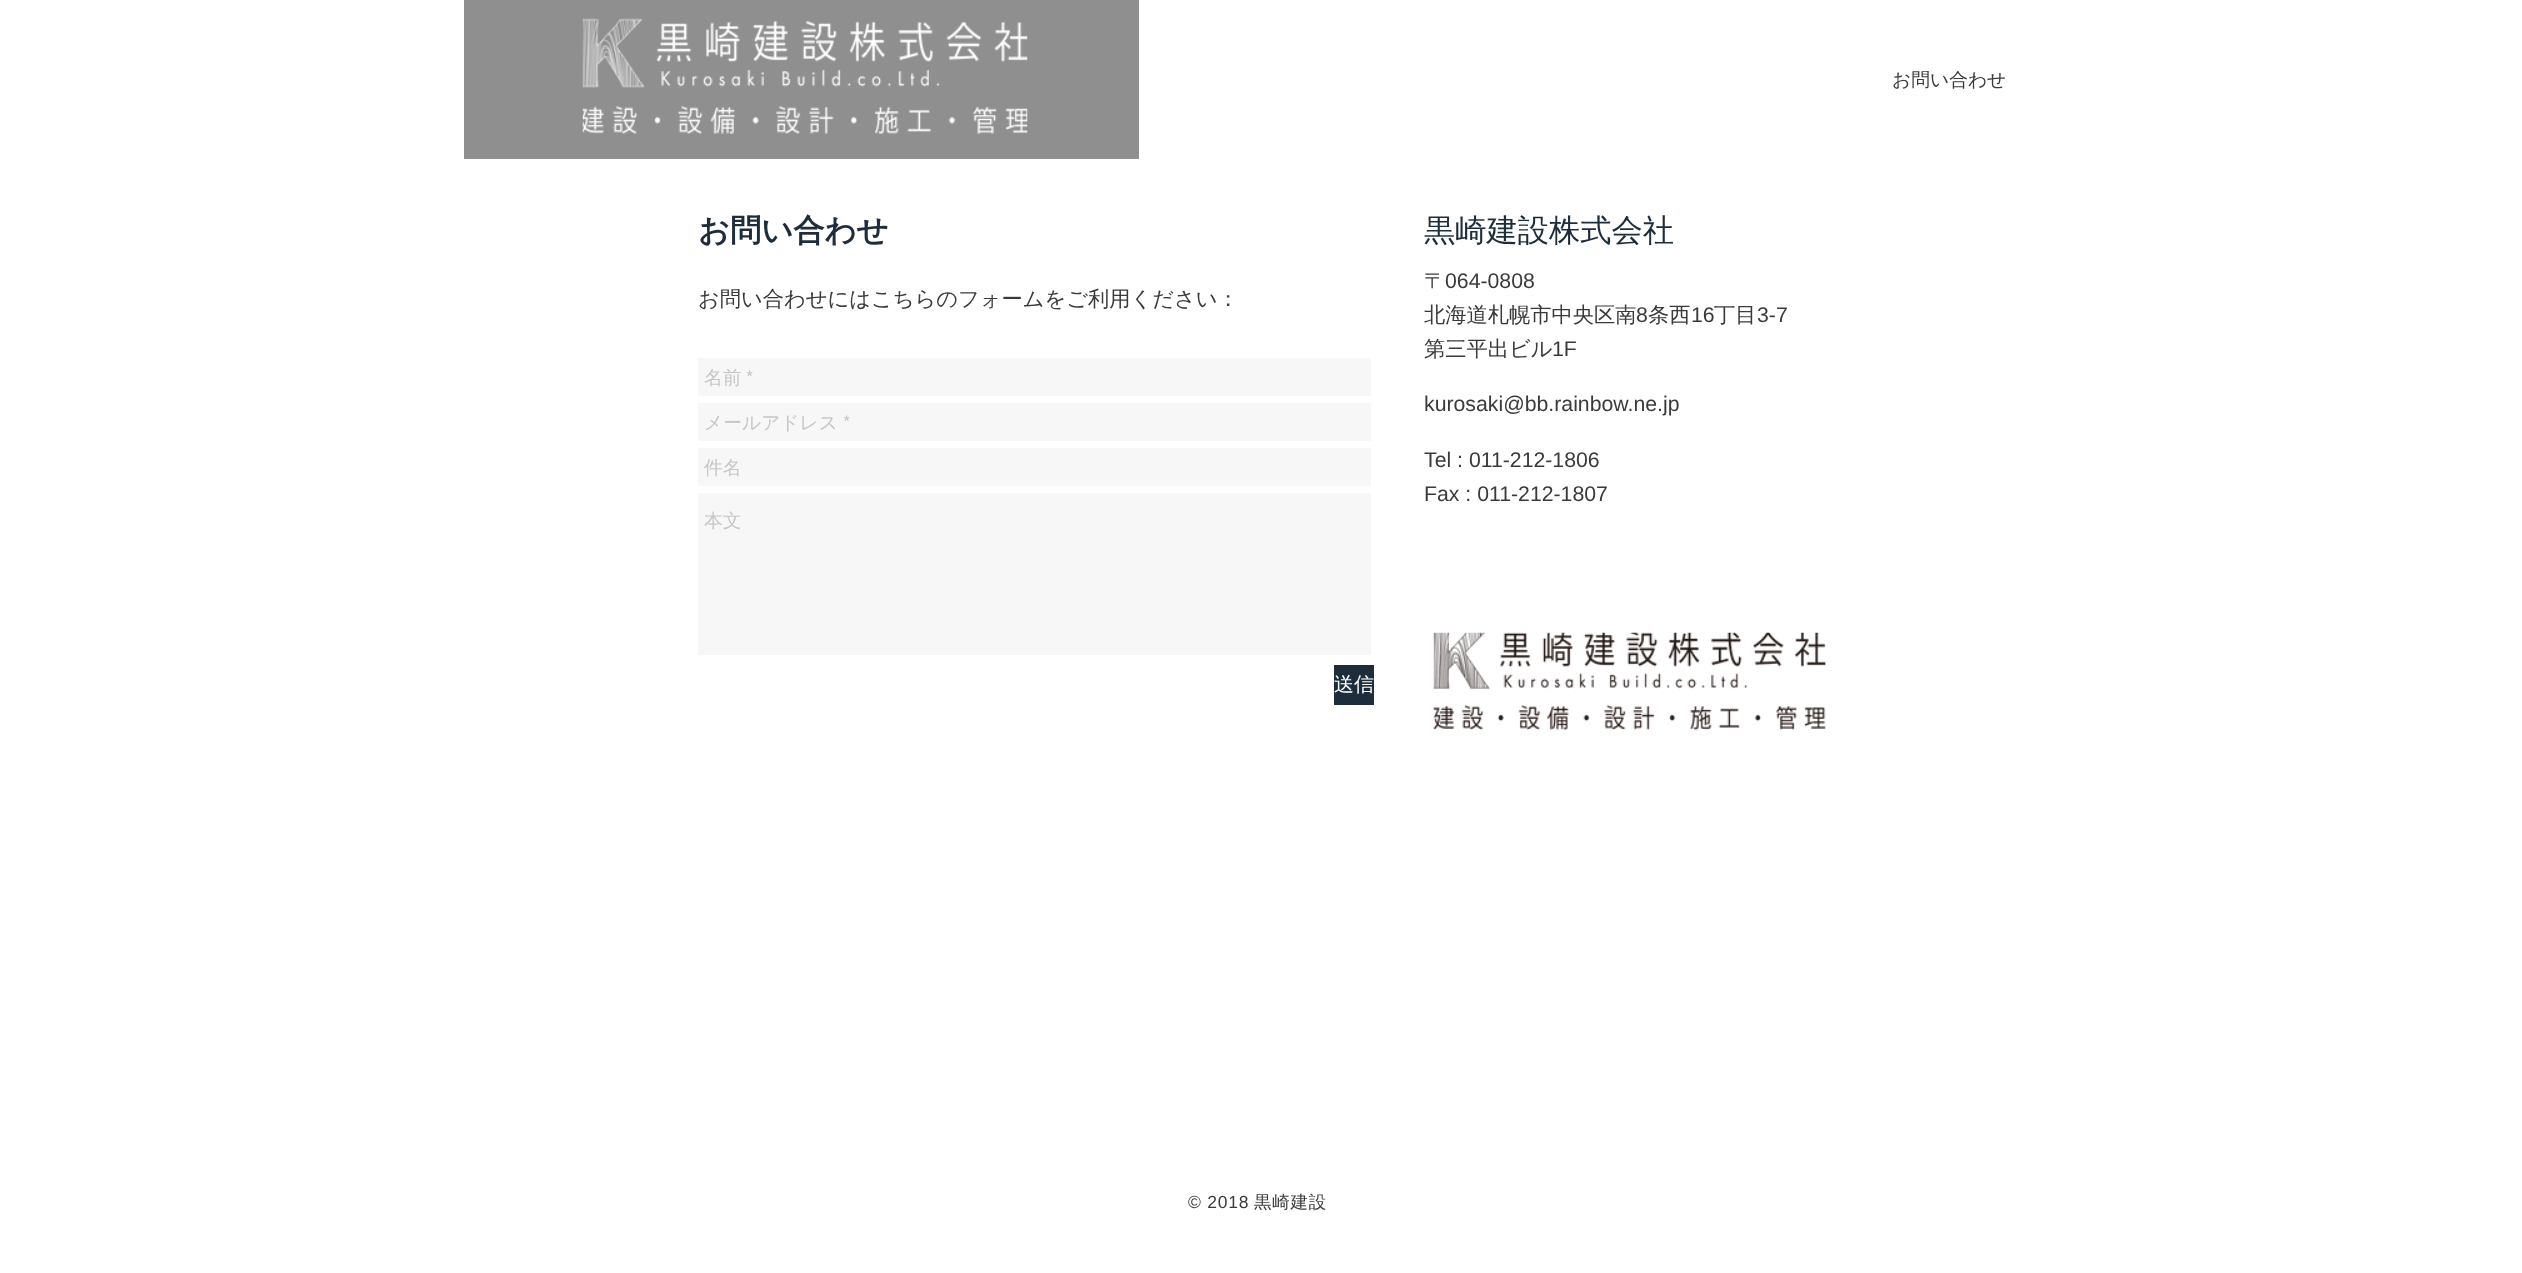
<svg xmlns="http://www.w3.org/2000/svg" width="2522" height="1273">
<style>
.a{font:500 18.75px WenQuanYi Zen Hei;fill:#3b3a3a}
.b{font:bold 31.25px WenQuanYi Zen Hei;fill:#1e2d3b}
.c{font:500 31.25px WenQuanYi Zen Hei;fill:#1e2d3b}
.d{font:500 21.25px WenQuanYi Zen Hei;fill:#3b3a3a}
.e{font:21.25px Liberation Sans;fill:#3b3a3a}
.f{font:500 18.75px WenQuanYi Zen Hei;fill:#c6c6c6}
.g{font:18.75px helvetica;fill:#c6c6c6}
.h{font:500 20px WenQuanYi Zen Hei;fill:#fff}
.i{font:17.5px Liberation Sans;letter-spacing:0.75px;fill:#3b3a3a}
.j{font:500 17.5px WenQuanYi Zen Hei;letter-spacing:0.75px;fill:#3b3a3a}
</style>
<rect width="100%" height="100%" fill="#fff"/>
<path fill="#8f8f8f" d="M464 0h675v159H464z"/>
<image href="1.png" x="582" y="18" width="446" height="116"/>
<path fill="#f7f7f7" d="M698 358h673v38H698z"/>
<path fill="#f7f7f7" d="M698 403h673v38H698z"/>
<path fill="#f7f7f7" d="M698 448h673v38H698z"/>
<path fill="#f7f7f7" d="M698 493h673v162H698z"/>
<path fill="#1e2d3b" d="M1334 665h40v40H1334z"/>
<image href="2.png" x="1433" y="632" width="394" height="99"/>
<text class="a" x="1892" y="86">お問い合わせ</text>
<text class="b" x="698" y="241">お問い合わせ</text>
<text class="c" x="1424" y="241">黒崎建設株式会社</text>
<text class="d" x="698" y="306">お問い合わせにはこちらのフォームをご利用ください：</text>
<text class="d" x="1424" y="288">〒</text>
<text class="e" x="1445" y="288">064-0808</text>
<text class="d" x="1424" y="322">北海道札幌市中央区南</text>
<text class="e" x="1636" y="322">8</text>
<text class="d" x="1648" y="322">条西</text>
<text class="e" x="1691" y="322">16</text>
<text class="d" x="1714" y="322">丁目</text>
<text class="e" x="1757" y="322">3-7</text>
<text class="d" x="1424" y="356">第三平出ビル</text>
<text class="e" x="1552" y="356">1F</text>
<text class="e" x="1424" y="411">kurosaki@bb.rainbow.ne.jp</text>
<text class="e" x="1424" y="467">Tel : 011-212-1806</text>
<text class="e" x="1424" y="501">Fax : 011-212-1807</text>
<text class="f" x="704" y="384">名前</text>
<text class="g" x="746" y="384">*</text>
<text class="f" x="704" y="429">メールアドレス</text>
<text class="g" x="843" y="429">*</text>
<text class="f" x="704" y="474">件名</text>
<text class="f" x="704" y="527">本文</text>
<text class="h" x="1334" y="691">送信</text>
<text class="i" x="1188" y="1208">© 2018</text>
<text class="j" x="1254" y="1208">黒崎建設</text>
</svg>
